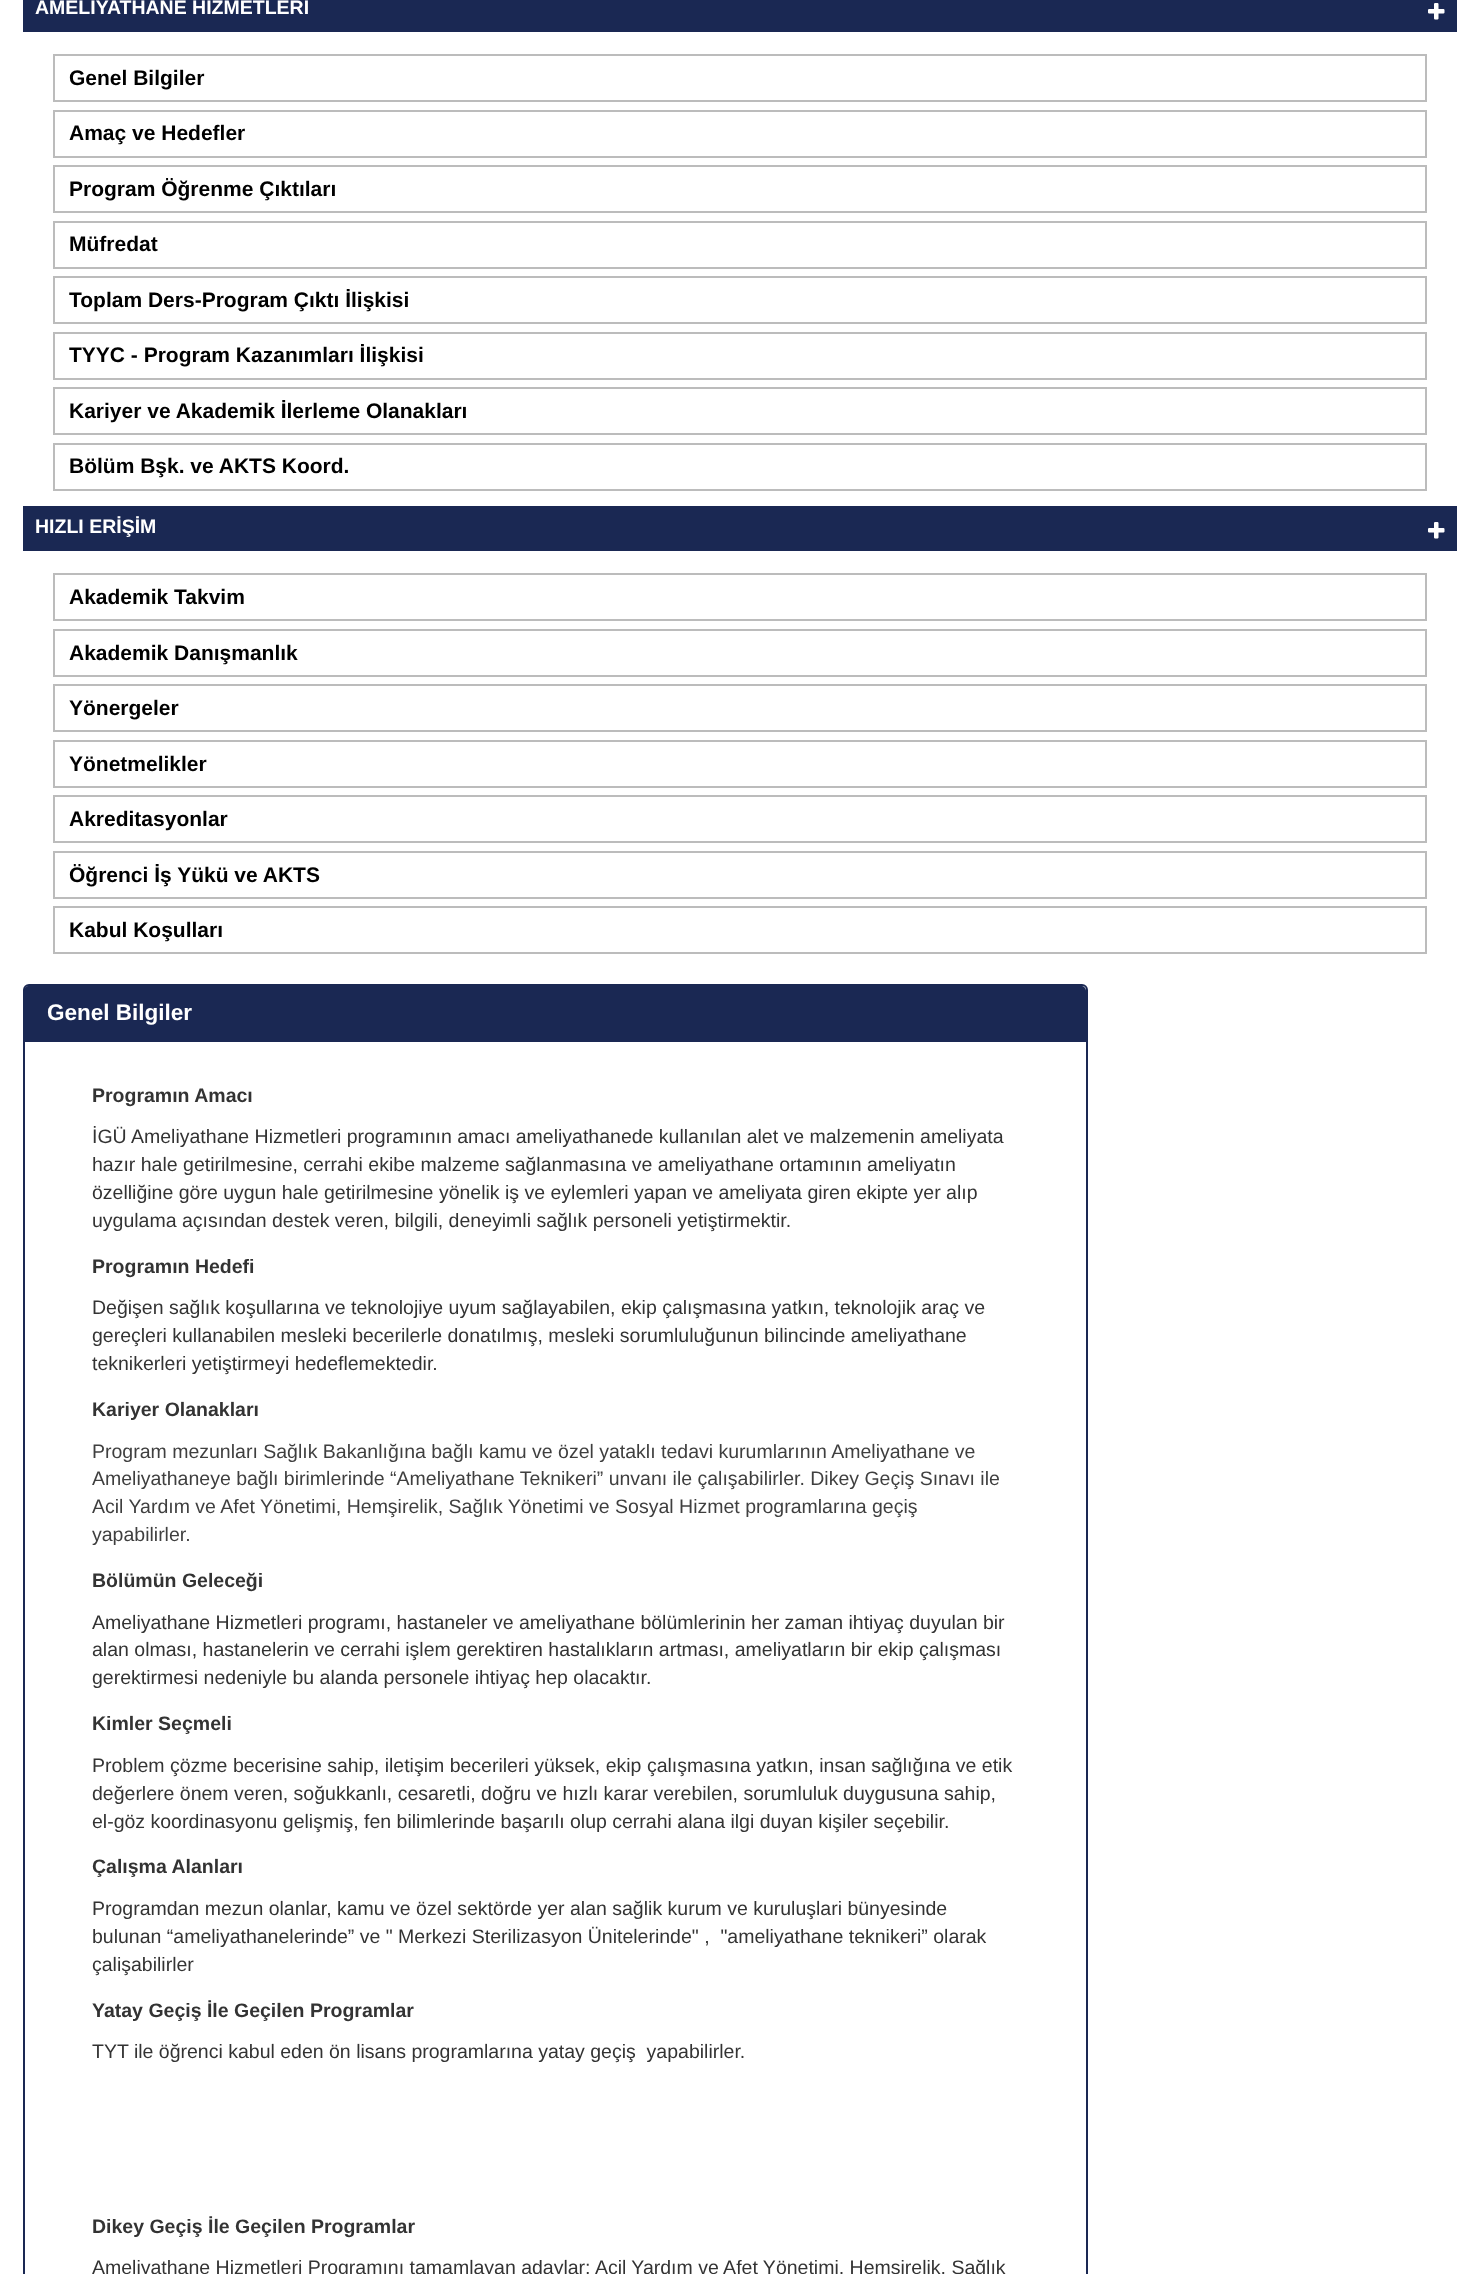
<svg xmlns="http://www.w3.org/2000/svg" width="1478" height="2274">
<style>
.a{font:bold 19.5px Liberation Sans;fill:#fff}
.b{font:bold 21px Liberation Sans;fill:#000}
.c{font:bold 22.5px Liberation Sans;fill:#fff}
.d{font:bold 19.5px Liberation Sans;fill:#333}
.e{font:19.5px Liberation Sans;fill:#333}
.f{font:19.5px Liberation Sans;fill:#3f3f3f}
</style>
<rect width="100%" height="100%" fill="#fff"/>
<path fill="#1a2853" d="M23 0h1434v32H23z"/>
<image href="1.png" x="1428" y="3" width="17" height="17"/>
<path fill="none" stroke="#bcbcbc" stroke-width="2" d="M54 55h1372v46H54z"/>
<path fill="none" stroke="#bcbcbc" stroke-width="2" d="M54 111h1372v46H54z"/>
<path fill="none" stroke="#bcbcbc" stroke-width="2" d="M54 166h1372v46H54z"/>
<path fill="none" stroke="#bcbcbc" stroke-width="2" d="M54 222h1372v46H54z"/>
<path fill="none" stroke="#bcbcbc" stroke-width="2" d="M54 277h1372v46H54z"/>
<path fill="none" stroke="#bcbcbc" stroke-width="2" d="M54 333h1372v46H54z"/>
<path fill="none" stroke="#bcbcbc" stroke-width="2" d="M54 388h1372v46H54z"/>
<path fill="none" stroke="#bcbcbc" stroke-width="2" d="M54 444h1372v46H54z"/>
<path fill="#1a2853" d="M23 506h1434v45H23z"/>
<image href="1.png" x="1428" y="522" width="17" height="17"/>
<path fill="none" stroke="#bcbcbc" stroke-width="2" d="M54 574h1372v46H54z"/>
<path fill="none" stroke="#bcbcbc" stroke-width="2" d="M54 630h1372v46H54z"/>
<path fill="none" stroke="#bcbcbc" stroke-width="2" d="M54 685h1372v46H54z"/>
<path fill="none" stroke="#bcbcbc" stroke-width="2" d="M54 741h1372v46H54z"/>
<path fill="none" stroke="#bcbcbc" stroke-width="2" d="M54 796h1372v46H54z"/>
<path fill="none" stroke="#bcbcbc" stroke-width="2" d="M54 852h1372v46H54z"/>
<path fill="none" stroke="#bcbcbc" stroke-width="2" d="M54 907h1372v46H54z"/>
<rect fill="none" stroke="#1a2853" stroke-width="2" x="24" y="985" width="1063" height="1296" rx="5"/>
<path fill="#1a2853" d="M29 986h1052c3 0 5 2 5 5v50h-1062v-50c0-3 2-5 5-5z"/>
<path fill="#1a2853" d="M24 1041h1062v1H24z"/>
<text class="a" x="35" y="14">AMELİYATHANE HİZMETLERİ</text>
<text class="b" x="69" y="85">Genel Bilgiler</text>
<text class="b" x="69" y="140">Amaç ve Hedefler</text>
<text class="b" x="69" y="196">Program Öğrenme Çıktıları</text>
<text class="b" x="69" y="251">Müfredat</text>
<text class="b" x="69" y="307">Toplam Ders-Program Çıktı İlişkisi</text>
<text class="b" x="69" y="362">TYYC - Program Kazanımları İlişkisi</text>
<text class="b" x="69" y="418">Kariyer ve Akademik İlerleme Olanakları</text>
<text class="b" x="69" y="473">Bölüm Bşk. ve AKTS Koord.</text>
<text class="a" x="35" y="533">HIZLI ERİŞİM</text>
<text class="b" x="69" y="604">Akademik Takvim</text>
<text class="b" x="69" y="660">Akademik Danışmanlık</text>
<text class="b" x="69" y="715">Yönergeler</text>
<text class="b" x="69" y="771">Yönetmelikler</text>
<text class="b" x="69" y="826">Akreditasyonlar</text>
<text class="b" x="69" y="882">Öğrenci İş Yükü ve AKTS</text>
<text class="b" x="69" y="937">Kabul Koşulları</text>
<text class="c" x="47" y="1020">Genel Bilgiler</text>
<text class="d" x="92" y="1102">Programın Amacı</text>
<text class="e" x="92" y="1143">İGÜ Ameliyathane Hizmetleri programının amacı ameliyathanede kullanılan alet ve malzemenin ameliyata</text>
<text class="e" x="92" y="1171">hazır hale getirilmesine, cerrahi ekibe malzeme sağlanmasına ve ameliyathane ortamının ameliyatın</text>
<text class="e" x="92" y="1199">özelliğine göre uygun hale getirilmesine yönelik iş ve eylemleri yapan ve ameliyata giren ekipte yer alıp</text>
<text class="e" x="92" y="1227">uygulama açısından destek veren, bilgili, deneyimli sağlık personeli yetiştirmektir.</text>
<text class="d" x="92" y="1273">Programın Hedefi</text>
<text class="e" x="92" y="1314">Değişen sağlık koşullarına ve teknolojiye uyum sağlayabilen, ekip çalışmasına yatkın, teknolojik araç ve</text>
<text class="e" x="92" y="1342">gereçleri kullanabilen mesleki becerilerle donatılmış, mesleki sorumluluğunun bilincinde ameliyathane</text>
<text class="e" x="92" y="1370">teknikerleri yetiştirmeyi hedeflemektedir.</text>
<text class="d" x="92" y="1416">Kariyer Olanakları</text>
<text class="f" x="92" y="1458">Program mezunları Sağlık Bakanlığına bağlı kamu ve özel yataklı tedavi kurumlarının Ameliyathane ve</text>
<text class="f" x="92" y="1485">Ameliyathaneye bağlı birimlerinde “Ameliyathane Teknikeri” unvanı ile çalışabilirler. Dikey Geçiş Sınavı ile</text>
<text class="f" x="92" y="1513">Acil Yardım ve Afet Yönetimi, Hemşirelik, Sağlık Yönetimi ve Sosyal Hizmet programlarına geçiş</text>
<text class="f" x="92" y="1541">yapabilirler.</text>
<text class="d" x="92" y="1587">Bölümün Geleceği</text>
<text class="e" x="92" y="1629">Ameliyathane Hizmetleri programı, hastaneler ve ameliyathane bölümlerinin her zaman ihtiyaç duyulan bir</text>
<text class="e" x="92" y="1656">alan olması, hastanelerin ve cerrahi işlem gerektiren hastalıkların artması, ameliyatların bir ekip çalışması</text>
<text class="e" x="92" y="1684">gerektirmesi nedeniyle bu alanda personele ihtiyaç hep olacaktır.</text>
<text class="d" x="92" y="1730">Kimler Seçmeli</text>
<text class="e" x="92" y="1772">Problem çözme becerisine sahip, iletişim becerileri yüksek, ekip çalışmasına yatkın, insan sağlığına ve etik</text>
<text class="e" x="92" y="1800">değerlere önem veren, soğukkanlı, cesaretli, doğru ve hızlı karar verebilen, sorumluluk duygusuna sahip,</text>
<text class="e" x="92" y="1828">el-göz koordinasyonu gelişmiş, fen bilimlerinde başarılı olup cerrahi alana ilgi duyan kişiler seçebilir.</text>
<text class="d" x="92" y="1873">Çalışma Alanları</text>
<text class="e" x="92" y="1915">Programdan mezun olanlar, kamu ve özel sektörde yer alan sağlik kurum ve kuruluşlari bünyesinde</text>
<text class="e" xml:space="preserve" x="92" y="1943">bulunan “ameliyathanelerinde” ve " Merkezi Sterilizasyon Ünitelerinde" ,  "ameliyathane teknikeri” olarak</text>
<text class="e" x="92" y="1971">çalişabilirler</text>
<text class="d" x="92" y="2017">Yatay Geçiş İle Geçilen Programlar</text>
<text class="e" xml:space="preserve" x="92" y="2058">TYT ile öğrenci kabul eden ön lisans programlarına yatay geçiş  yapabilirler.</text>
<text class="d" x="92" y="2233">Dikey Geçiş İle Geçilen Programlar</text>
<text class="e" x="92" y="2274">Ameliyathane Hizmetleri Programını tamamlayan adaylar; Acil Yardım ve Afet Yönetimi, Hemşirelik, Sağlık</text>
</svg>
